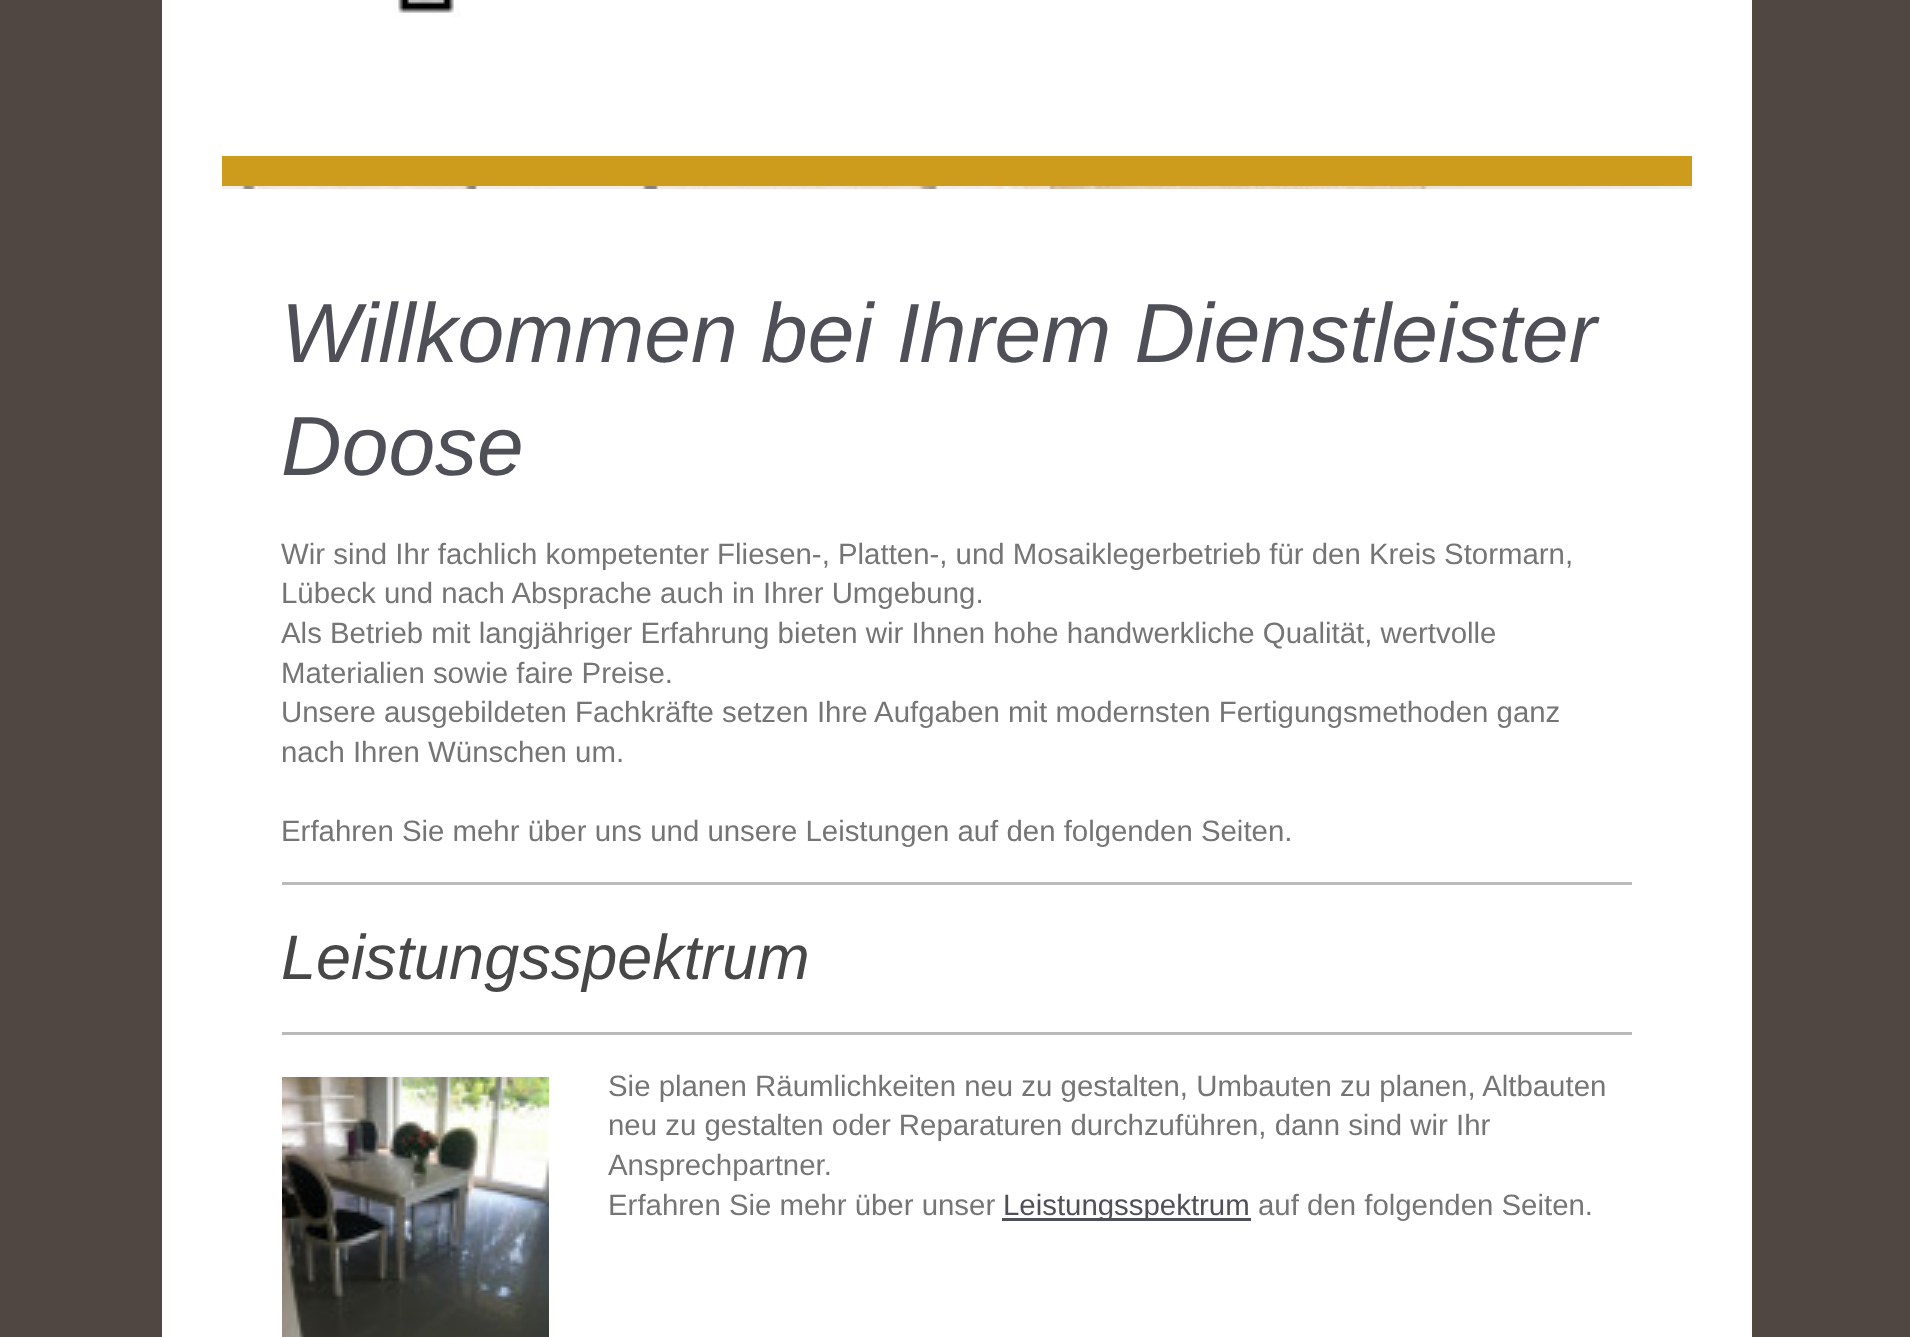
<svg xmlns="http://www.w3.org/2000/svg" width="1910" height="1337">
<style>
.a{font:italic 84px Liberation Sans;fill:#4f4f58}
.b{font:29.4px Liberation Sans;fill:#757575}
.c{font:italic 63px Liberation Sans;fill:#474747}
.d{font:29.4px Liberation Sans;fill:#4f4f58}
</style>
<rect width="100%" height="100%" fill="#504742"/>
<path fill="#fff" d="M162 0h1590v1337H162z"/>
<image href="1.png" x="394" y="0" width="67" height="17"/>
<path fill="#ce9c1c" d="M222 156h1470v30H222z"/>
<image href="2.png" x="222" y="186" width="1470" height="3"/>
<path fill="#bababa" d="M282 882h1350v3H282z"/>
<path fill="#bababa" d="M282 1032h1350v3H282z"/>
<image href="3.png" x="282" y="1077" width="267" height="260"/>
<path fill="#4f4f58" d="M1002 1218h249v3H1002z"/>
<text class="a" x="281" y="362">Willkommen bei Ihrem Dienstleister</text>
<text class="a" x="281" y="475">Doose</text>
<text class="b" x="281" y="564">Wir sind Ihr fachlich kompetenter Fliesen-, Platten-, und Mosaiklegerbetrieb für den Kreis Stormarn,</text>
<text class="b" x="281" y="603">Lübeck und nach Absprache auch in Ihrer Umgebung.</text>
<text class="b" x="281" y="643">Als Betrieb mit langjähriger Erfahrung bieten wir Ihnen hohe handwerkliche Qualität, wertvolle</text>
<text class="b" x="281" y="683">Materialien sowie faire Preise.</text>
<text class="b" x="281" y="722">Unsere ausgebildeten Fachkräfte setzen Ihre Aufgaben mit modernsten Fertigungsmethoden ganz</text>
<text class="b" x="281" y="762">nach Ihren Wünschen um.</text>
<text class="b" x="281" y="841">Erfahren Sie mehr über uns und unsere Leistungen auf den folgenden Seiten.</text>
<text class="c" x="281" y="979">Leistungsspektrum</text>
<text class="b" x="608" y="1096">Sie planen Räumlichkeiten neu zu gestalten, Umbauten zu planen, Altbauten</text>
<text class="b" x="608" y="1135">neu zu gestalten oder Reparaturen durchzuführen, dann sind wir Ihr</text>
<text class="b" x="608" y="1175">Ansprechpartner.</text>
<text class="b" x="608" y="1215">Erfahren Sie mehr über unser</text>
<text class="d" x="1003" y="1215">Leistungsspektrum</text>
<text class="b" x="1258" y="1215">auf den folgenden Seiten.</text>
</svg>
